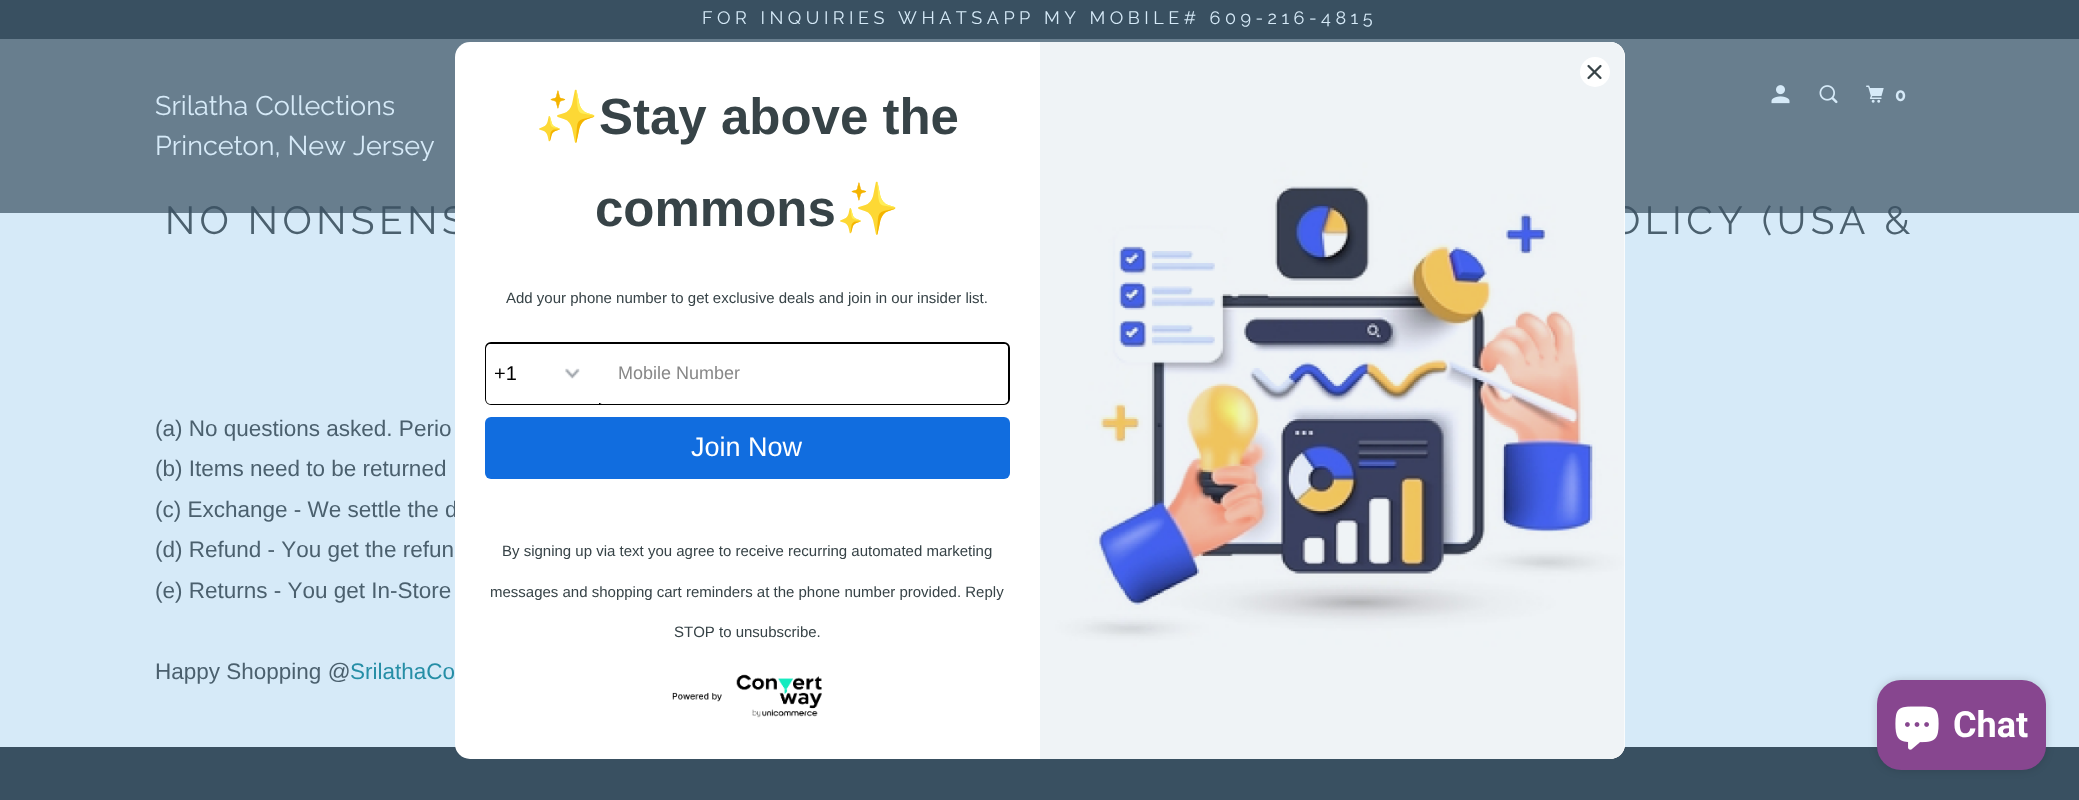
<svg xmlns="http://www.w3.org/2000/svg" width="2079" height="800">
<style>*{font-kerning:none!important;font-variant-ligatures:none!important}</style>
<style>
.a{font:18px Raleway;letter-spacing:4.5px;fill:#d6eaf8}
.b{font:39px Raleway;letter-spacing:4.5px;fill:#4b606e}
.c{font:bold 18px Raleway;letter-spacing:3px;fill:#d6eaf8}
.d{font:27px Raleway;fill:#d6eaf8}
.e{font:22.5px Liberation Sans;fill:#4b606e}
.f{font:22.5px Liberation Sans;fill:#268ea6}
.g{font:bold 51px Noto Color Emoji;fill:#374347}
.h{font:bold 51px Liberation Sans;fill:#374347}
.i{font:15px Liberation Sans;fill:#374347}
.j{font:20px Liberation Sans;fill:#000}
.k{font:18px Liberation Sans;fill:#888}
.l{font:27px Liberation Sans;fill:#fff}
.m{font:bold 36px Roboto;fill:#fff}
</style>
<rect width="100%" height="100%" fill="#d6eaf8"/>
<path fill="#395061" d="M0 0h2079v39H0z"/>
<path fill="#395061" d="M0 747h2079v53H0z"/>
<rect fill="#00000026" filter="blur(4px)" x="1877" y="680" width="169" height="90" rx="24"/>
<rect fill="#87468f" x="1877" y="680" width="169" height="90" rx="24"/>
<image href="8.png" x="1895" y="706" width="44" height="44"/>
<text class="a" x="702" y="24">FOR INQUIRIES WHATSAPP MY MOBILE# 609-216-4815</text>
<text class="b" x="165" y="234">NO NONSENS</text>
<text class="b" x="1611" y="234">OLICY (USA &amp;</text>
<path fill="#395061b3" d="M0 39h2079v174H0z"/>
<text class="c" x="1895" y="101">0</text>
<image href="3.png" x="1866" y="85" width="18" height="18"/>
<image href="2.png" x="1819" y="85" width="19" height="19"/>
<image href="1.png" x="1771" y="85" width="19" height="19"/>
<text class="d" x="155" y="155">Princeton, New Jersey</text>
<text class="d" x="155" y="115">Srilatha Collections</text>
<text class="e" x="155" y="436">(a) No questions asked. Perio</text>
<text class="e" x="155" y="476">(b) Items need to be returned</text>
<text class="e" x="155" y="517">(c) Exchange - We settle the d</text>
<text class="e" x="155" y="557">(d) Refund - You get the refun</text>
<text class="e" x="155" y="598">(e) Returns - You get In-Store</text>
<text class="e" x="155" y="679">Happy Shopping @</text>
<text class="f" x="350" y="679">SrilathaCo</text>
<rect fill="#fff" x="455" y="42" width="1170" height="717" rx="15"/>
<path fill="#fff" d="M1040 42h570c8.5 0 15 6.5 15 15v687c0 8.5-6.5 15-15 15h-570z"/>
<image href="4.png" x="1040" y="42" width="585" height="717"/>
<circle fill="#fff" cx="1595" cy="72" r="15"/>
<image href="5.png" x="1587" y="64" width="15" height="16"/>
<text class="g" x="535" y="134">✨</text>
<text class="h" x="599" y="134">Stay above the</text>
<text class="h" x="595" y="226">commons</text>
<text class="g" x="836" y="226">✨</text>
<text class="i" x="506" y="303">Add your phone number to get exclusive deals and join in our insider list.</text>
<rect fill="none" stroke="#000" stroke-width="2" x="486" y="343" width="523" height="61" rx="5"/>
<path fill="#fff" d="M491 344h108v60h-108c-3 0-5-2-5-5v-50c0-3 2-5 5-5z"/>
<image href="6.png" x="565" y="368" width="15" height="11"/>
<text class="j" x="494" y="380">+1</text>
<path fill="#fff" d="M602 344h401c3 0 5 2 5 5v50c0 3-2 5-5 5h-401c-1.5 0-3-1.5-3-3v-54c0-1.5 1.5-3 3-3z"/>
<text class="k" x="618" y="379">Mobile Number</text>
<rect fill="#116ddf" x="485" y="417" width="525" height="62" rx="6"/>
<text class="l" x="691" y="456">Join Now</text>
<text class="i" x="502" y="556">By signing up via text you agree to receive recurring automated marketing</text>
<text class="i" x="490" y="597">messages and shopping cart reminders at the phone number provided. Reply</text>
<text class="i" x="674" y="637">STOP to unsubscribe.</text>
<image href="7.png" x="672" y="674" width="150" height="44"/>
<text class="m" x="1953" y="737">Chat</text>
</svg>
